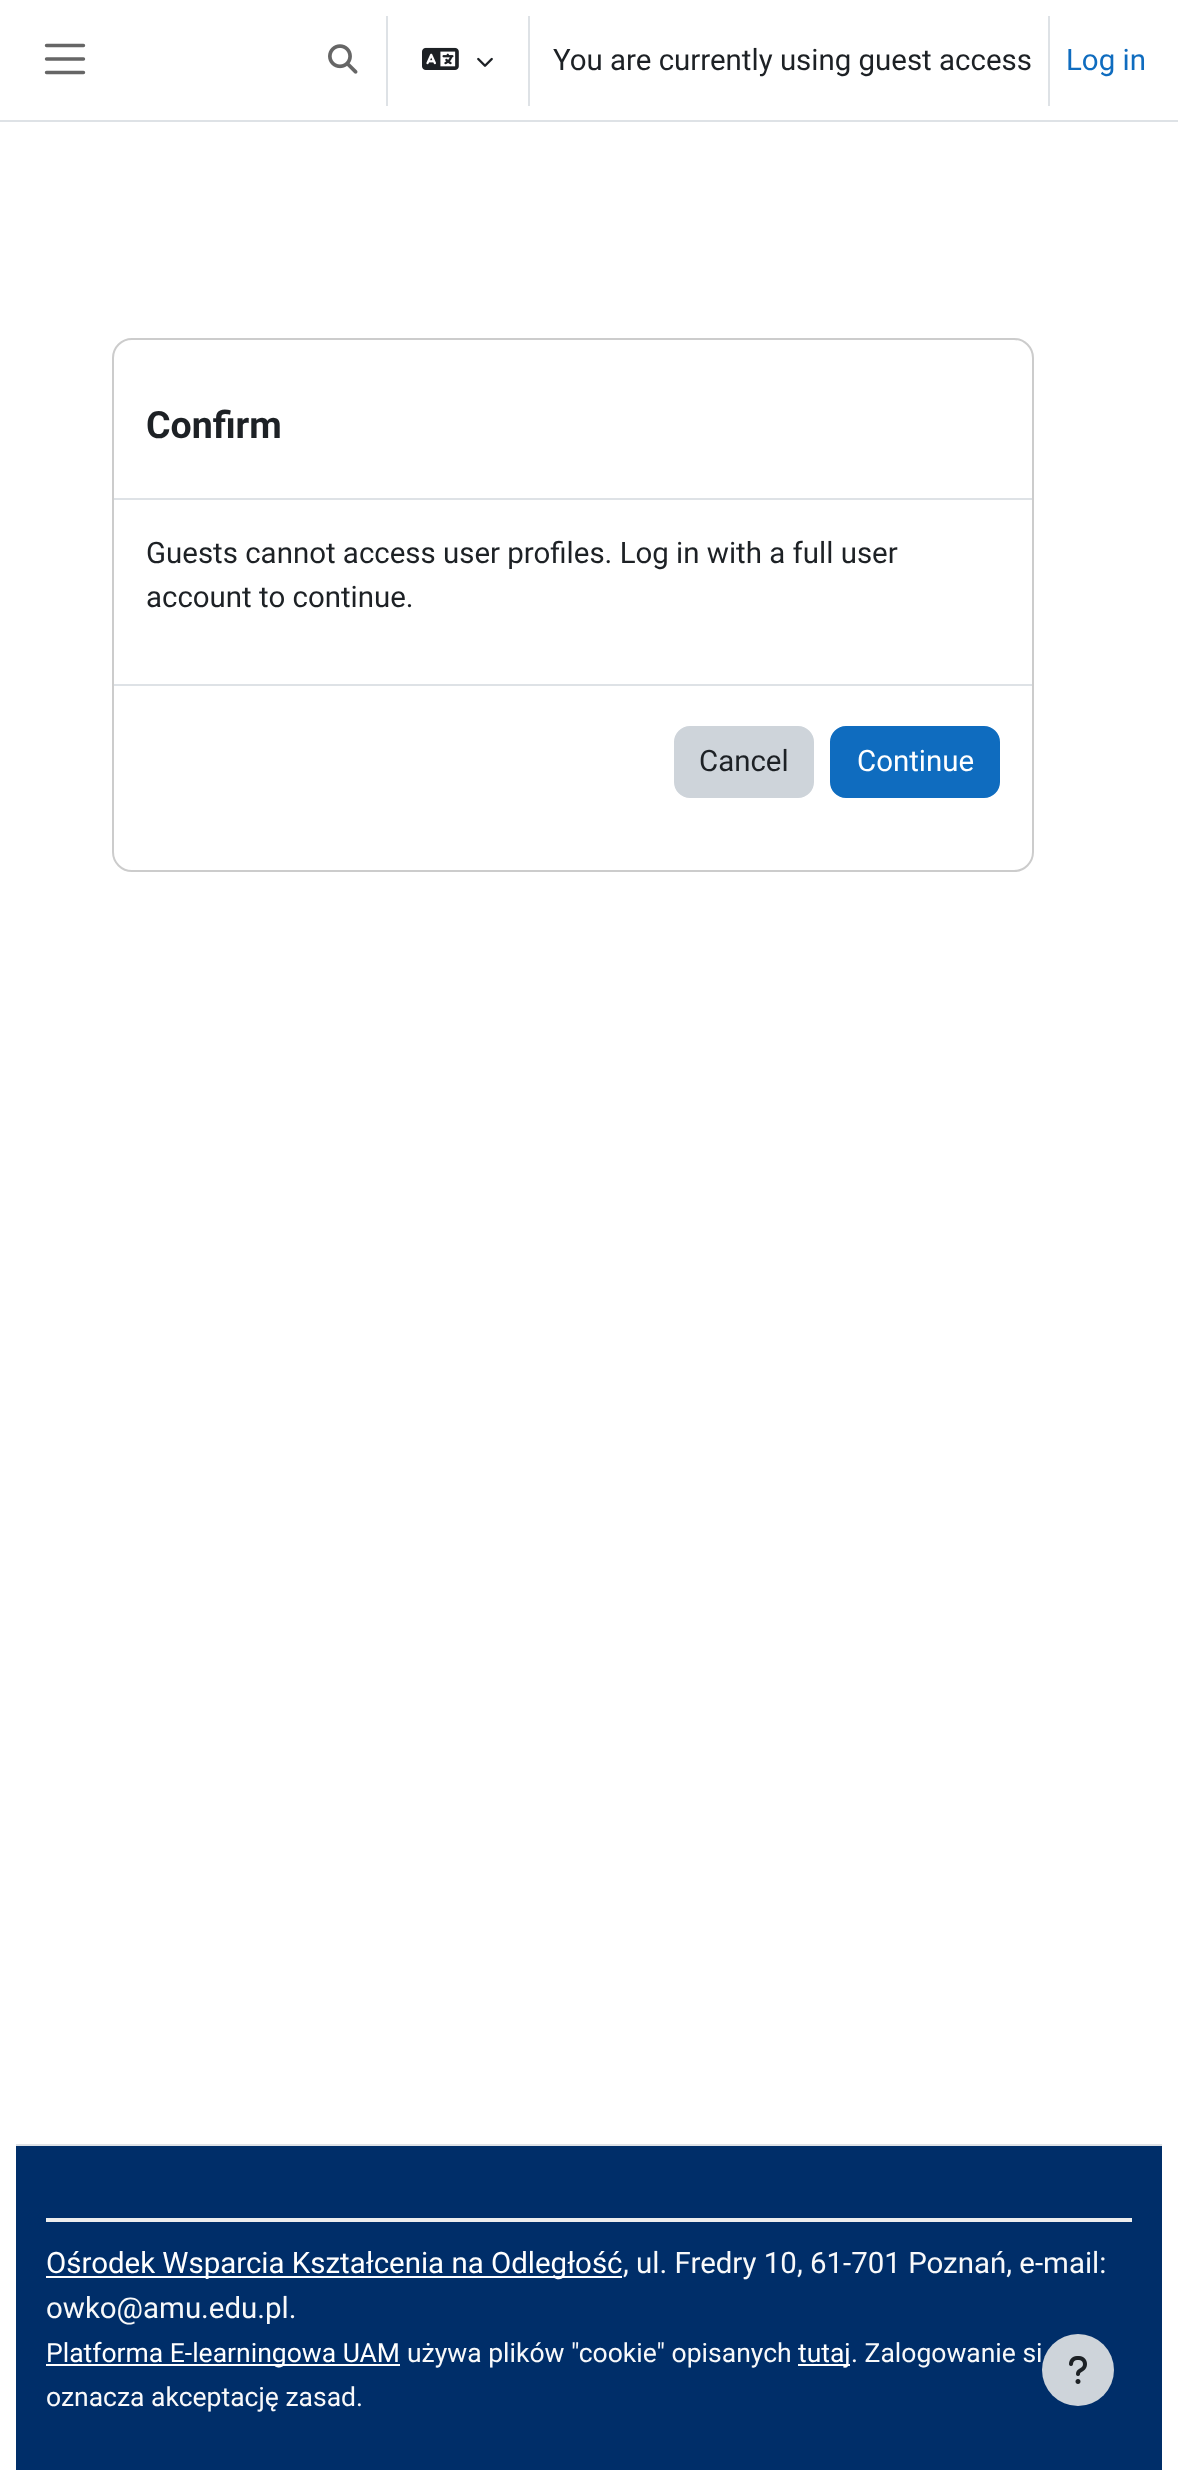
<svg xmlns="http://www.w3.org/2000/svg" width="1178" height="2470">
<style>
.a{font:29.45px Roboto;fill:#1d2125}
.b{font:29.45px Roboto;fill:#0f6cbf}
.c{font:bold 37.5px Roboto;fill:#1d2125}
.d{font:29.45px Roboto;fill:#fff}
.e{font:29.45px Roboto;fill:#f8f9fa}
.f{font:26.5px Roboto;fill:#fff}
.g{font:26.5px Roboto;fill:#f8f9fa}
</style>
<rect width="100%" height="100%" fill="#fff"/>
<path fill="#dee2e6" d="M0 120h1178v2H0z"/>
<path fill="none" stroke="#666" stroke-width="3.4" stroke-linecap="round" d="M46.5 45.5h37m-37 13.5h37m-37 13.5h37"/>
<image href="1.png" x="328" y="44" width="30" height="30"/>
<path fill="#dee2e6" d="M386 16h2v90H386z"/>
<image href="2.png" x="422" y="47" width="37" height="23"/>
<image href="3.png" x="477" y="57" width="16" height="10"/>
<path fill="#dee2e6" d="M528 16h2v90H528z"/>
<path fill="#dee2e6" d="M1048 16h2v90H1048z"/>
<rect fill="none" stroke="#ccc" stroke-width="2" x="113" y="339" width="920" height="532" rx="19"/>
<path fill="#dee2e6" d="M114 498h918v2H114z"/>
<path fill="#dee2e6" d="M114 684h918v2H114z"/>
<rect fill="#ced4da" stroke="#ced4da" stroke-width="2" x="675" y="727" width="138" height="70" rx="15"/>
<rect fill="#0f6cbf" stroke="#0f6cbf" stroke-width="2" x="831" y="727" width="168" height="70" rx="15"/>
<path fill="#002e69" d="M16 2146h1146v324H16z"/>
<path fill="#dee2e6" d="M16 2144h1146v2H16z"/>
<path fill="#ededed" d="M46 2218h1086v4H46z"/>
<path fill="#fff" d="M46 2276h576v2H46z"/>
<path fill="#fff" d="M46 2364h354v2H46z"/>
<path fill="#fff" d="M798 2364h52v2H798z"/>
<circle fill="#ced4da" cx="1078" cy="2370" r="36"/>
<image href="4.png" x="1069" y="2356" width="18" height="28"/>
<text class="a" x="553" y="70">You are currently using guest access</text>
<text class="b" x="1066" y="70">Log in</text>
<text class="c" x="146" y="438">Confirm</text>
<text class="a" x="146" y="563">Guests cannot access user profiles. Log in with a full user</text>
<text class="a" x="146" y="607">account to continue.</text>
<text class="a" x="699" y="771">Cancel</text>
<text class="d" x="857" y="771">Continue</text>
<text class="d" x="46" y="2273">Ośrodek Wsparcia Kształcenia na Odległość</text>
<text class="e" x="623" y="2273">, ul. Fredry 10, 61-701 Poznań, e-mail:</text>
<text class="e" x="46" y="2318">owko@amu.edu.pl.</text>
<text class="f" x="46" y="2362">Platforma E-learningowa UAM</text>
<text class="g" x="407" y="2362">używa plików "cookie" opisanych</text>
<text class="f" x="798" y="2362">tutaj</text>
<text class="g" x="851" y="2362">. Zalogowanie si</text>
<text class="g" x="46" y="2406">oznacza akceptację zasad.</text>
</svg>
